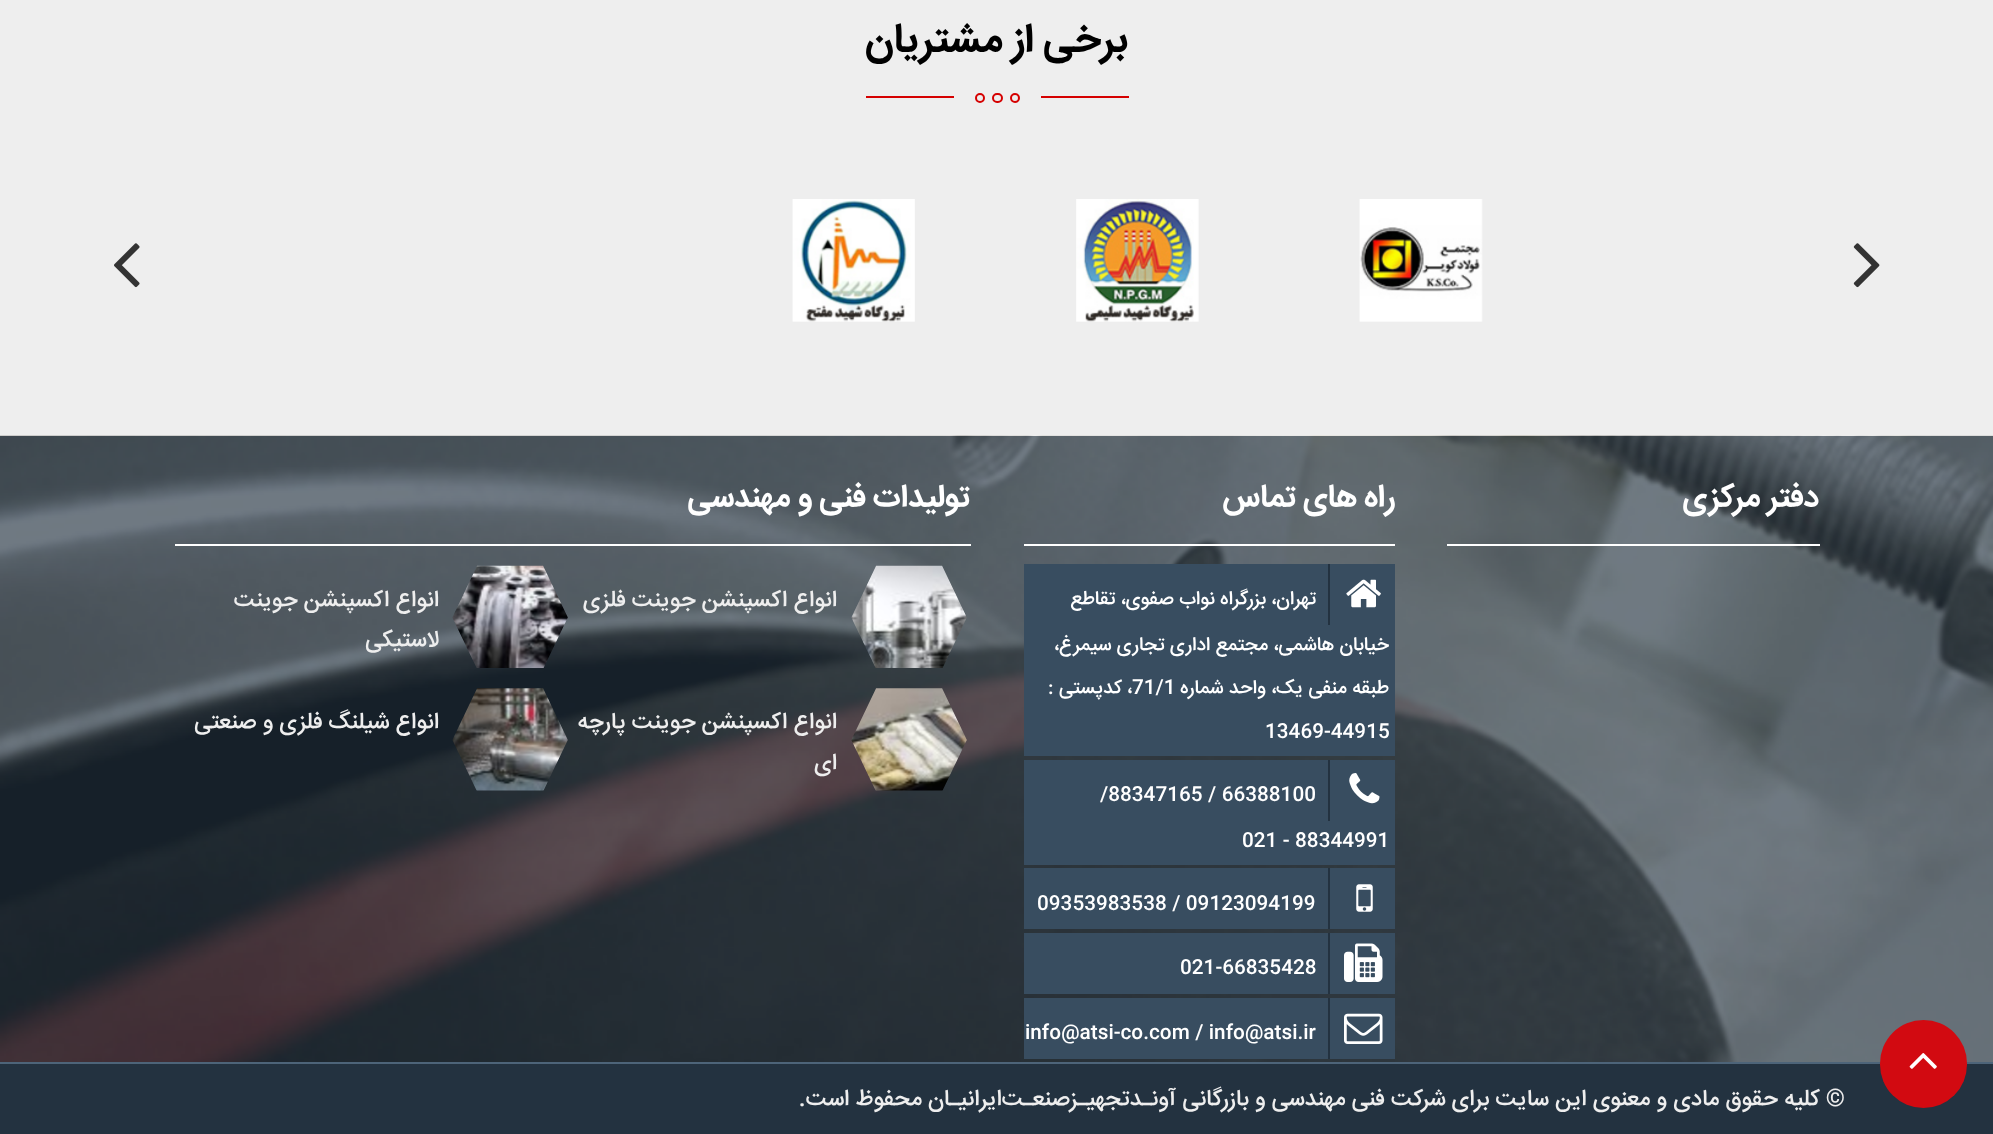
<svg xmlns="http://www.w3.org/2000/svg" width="1993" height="1134">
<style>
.a{font:bold 40.25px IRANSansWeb;direction:rtl;fill:#000}
.b{font:bold 31.5px IRANSansWeb;direction:rtl;fill:#fff}
.c{font:500 19.25px IRANSansWeb;direction:rtl;fill:#fff}
.d{font:500 19.25px IRANSansWeb;fill:#fff}
.e{font:500 22.75px IRANSansWeb;direction:rtl;fill:#eee}
</style>
<rect width="100%" height="100%" fill="#eee"/>
<path fill="#d50000" d="M1041 96h88v2H1041z"/>
<circle fill="none" stroke="#d50000" stroke-width="2" cx="1015" cy="98" r="4"/>
<rect fill="none" stroke="#d50000" stroke-width="2" x="993" y="94" width="9" height="8" rx="4"/>
<circle fill="none" stroke="#d50000" stroke-width="2" cx="980" cy="98" r="4"/>
<path fill="#d50000" d="M866 96h88v2H866z"/>
<image href="1.png" x="1853" y="243" width="27" height="45"/>
<image href="2.png" x="1359" y="199" width="124" height="123"/>
<image href="3.png" x="1076" y="199" width="123" height="123"/>
<image href="4.png" x="792" y="199" width="123" height="123"/>
<image href="5.png" x="114" y="243" width="26" height="45"/>
<path fill="#233240" d="M0 436h1993v626H0z"/>
<image href="7.png" x="0" y="435" width="1993" height="627"/>
<path fill="#233240" d="M0 1064h1993v70H0z"/>
<path fill="#4d6479" d="M0 1062h1993v2H0z"/>
<rect fill="#d20a11" x="1880" y="1020" width="87" height="88" rx="43.5"/>
<image href="6.png" x="1909" y="1053" width="28" height="16"/>
<path fill="#fff" d="M1447 544h373v2H1447z"/>
<path fill="#fff" d="M1024 544h371v2H1024z"/>
<path fill="#384d60" d="M1024 564h371v192H1024z"/>
<path fill="#233240" d="M1328 564h2v61H1328z"/>
<image href="8.png" x="1346" y="579" width="35" height="29"/>
<path fill="#384d60" d="M1024 760h371v105H1024z"/>
<path fill="#233240" d="M1328 760h2v61H1328z"/>
<image href="9.png" x="1349" y="773" width="31" height="31"/>
<path fill="#384d60" d="M1024 868h371v61H1024z"/>
<path fill="#233240" d="M1328 868h2v61H1328z"/>
<image href="10.png" x="1356" y="884" width="17" height="28"/>
<path fill="#384d60" d="M1024 933h371v61H1024z"/>
<path fill="#233240" d="M1328 933h2v61H1328z"/>
<image href="11.png" x="1344" y="943" width="39" height="39"/>
<path fill="#384d60" d="M1024 998h371v61H1024z"/>
<path fill="#233240" d="M1328 998h2v61H1328z"/>
<image href="12.png" x="1344" y="1013" width="39" height="31"/>
<path fill="#fff" d="M175 544h796v2H175z"/>
<image href="13.png" x="851" y="565" width="116" height="103"/>
<image href="14.png" x="452" y="565" width="116" height="103"/>
<image href="15.png" x="851" y="688" width="116" height="103"/>
<image href="16.png" x="452" y="688" width="116" height="103"/>
<text class="a" x="1128" y="51">برخی از مشتریان</text>
<text class="b" x="1819" y="506">دفتر مرکزی</text>
<text class="b" x="1395" y="506">راه های تماس</text>
<text class="c" x="1316" y="604">تهران، بزرگراه نواب صفوی، تقاطع</text>
<text class="c" x="1389" y="650">خیابان هاشمی، مجتمع اداری تجاری سیمرغ،</text>
<text class="c" x="1389" y="693">طبقه منفی یک، واحد شماره</text>
<text class="d" x="1132" y="693">71/1</text>
<text class="c" x="1132" y="693">، کدپستی :</text>
<text class="d" x="1265" y="737">13469-44915</text>
<text class="d" x="1100" y="800">/88347165 / 66388100</text>
<text class="d" x="1242" y="846">021 - 88344991</text>
<text class="d" x="1037" y="909">09353983538 / 09123094199</text>
<text class="d" x="1180" y="973">021-66835428</text>
<text class="d" x="1025" y="1038">info@atsi-co.com / info@atsi.ir</text>
<text class="b" x="970" y="506">تولیدات فنی و مهندسی</text>
<text class="e" x="837" y="606">انواع اکسپنشن جوینت فلزی</text>
<text class="e" x="439" y="606">انواع اکسپنشن جوینت</text>
<text class="e" x="439" y="646">لاستیکی</text>
<text class="e" x="837" y="728">انواع اکسپنشن جوینت پارچه</text>
<text class="e" x="837" y="769">ای</text>
<text class="e" x="439" y="728">انواع شیلنگ فلزی و صنعتی</text>
<text class="e" x="1845" y="1105">© کلیه حقوق مادی و معنوی این سایت برای شرکت فنی مهندسی و بازرگانی</text>
<text class="e" x="1176" y="1105">آونـدتجهیـزصنعـت‌ایرانیـان</text>
<text class="e" x="922" y="1105">محفوظ است.</text>
</svg>
